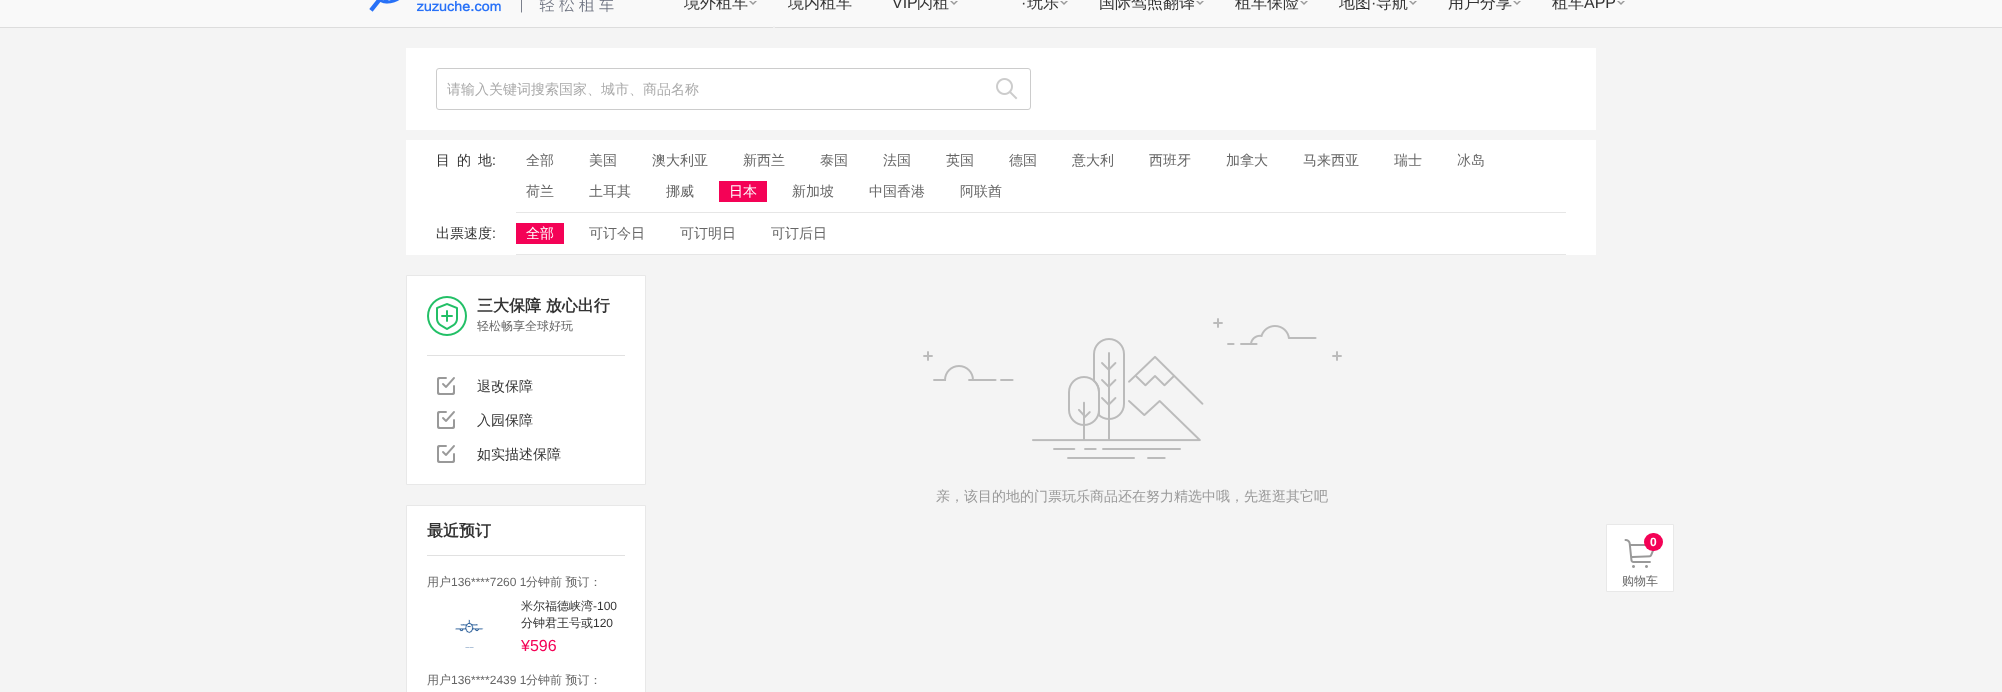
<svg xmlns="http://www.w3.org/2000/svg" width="2002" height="692">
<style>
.a{font:500 16px WenQuanYi Zen Hei;fill:#333}
.b{font:16px Liberation Sans;fill:#333}
.c{font:500 14px WenQuanYi Zen Hei;fill:#aaa}
.d{font:500 14px WenQuanYi Zen Hei;letter-spacing:7px;fill:#333}
.e{font:500 14px WenQuanYi Zen Hei;fill:#333}
.f{font:14px Liberation Sans;fill:#333}
.g{font:500 14px WenQuanYi Zen Hei;fill:#666}
.h{font:500 14px WenQuanYi Zen Hei;fill:#fff}
.i{font:bold 16px WenQuanYi Zen Hei;fill:#333}
.j{font:500 12px WenQuanYi Zen Hei;fill:#666}
.k{font:12px Liberation Sans;fill:#666}
.l{font:500 12px WenQuanYi Zen Hei;fill:#333}
.m{font:12px Liberation Sans;fill:#333}
.n{font:16px Liberation Sans;fill:#f40256}
.o{font:500 14px WenQuanYi Zen Hei;fill:#999}
.p{font:bold 12px Liberation Sans;fill:#fff}
</style>
<rect width="100%" height="100%" fill="#f4f4f4"/>
<path fill="#f9f9f9" d="M0 0h2002v27H0z"/>
<path fill="#ddd" d="M0 27h2002v1H0z"/>
<image href="1.png" x="369" y="0" width="132" height="12"/>
<image href="2.png" x="521" y="0" width="93" height="13"/>
<path fill="#999" d="M749 1h8l-4 4z"/>
<path fill="#f9f9f9" d="M749-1h8l-4 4z"/>
<path fill="#f3f3f3" d="M773 26h2v1c0 .5-.5 1-1 1c-.5 0-1-.5-1-1z"/>
<path fill="#999" d="M950 1h8l-4 4z"/>
<path fill="#f9f9f9" d="M950-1h8l-4 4z"/>
<path fill="#999" d="M1060 1h8l-4 4z"/>
<path fill="#f9f9f9" d="M1060-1h8l-4 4z"/>
<path fill="#999" d="M1196 1h8l-4 4z"/>
<path fill="#f9f9f9" d="M1196-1h8l-4 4z"/>
<path fill="#999" d="M1300 1h8l-4 4z"/>
<path fill="#f9f9f9" d="M1300-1h8l-4 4z"/>
<path fill="#999" d="M1409 1h8l-4 4z"/>
<path fill="#f9f9f9" d="M1409-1h8l-4 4z"/>
<path fill="#999" d="M1513 1h8l-4 4z"/>
<path fill="#f9f9f9" d="M1513-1h8l-4 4z"/>
<path fill="#999" d="M1617 1h8l-4 4z"/>
<path fill="#f9f9f9" d="M1617-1h8l-4 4z"/>
<path fill="#fff" d="M406 48h1190v82H406z"/>
<rect fill="none" stroke="#ccc" x="436.5" y="68.5" width="594" height="41" rx="2.5"/>
<image href="3.png" x="996" y="78" width="22" height="22"/>
<path fill="#fff" d="M406 140h1190v115H406z"/>
<path fill="#e6e6e6" d="M516 212h1050v1H516z"/>
<path fill="#f40256" d="M719 181h48v21H719z"/>
<path fill="#e6e6e6" d="M516 254h1050v1H516z"/>
<path fill="#f40256" d="M516 223h48v21H516z"/>
<path fill="#fff" stroke="#e8e8e8" d="M406.5 275.5h239v209H406.5z"/>
<path fill="#e1e1e1" d="M427 355h198v1H427z"/>
<image href="4.png" x="427" y="296" width="40" height="40"/>
<image href="5.png" x="437" y="377" width="18" height="18"/>
<image href="5.png" x="437" y="411" width="18" height="18"/>
<image href="5.png" x="437" y="445" width="18" height="18"/>
<path fill="#fff" stroke="#e8e8e8" d="M406.5 505.5h239v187H406.5z"/>
<path fill="#e1e1e1" d="M427 555h198v1H427z"/>
<image href="6.png" x="455" y="619" width="29" height="29"/>
<image href="7.png" x="923" y="318" width="419" height="141"/>
<path fill="#fff" stroke="#e8e8e8" d="M1606.5 524.5h67v67H1606.5z"/>
<image href="8.png" x="1624" y="539" width="31" height="29"/>
<rect fill="#f40256" x="1644" y="533" width="19" height="18" rx="9"/>
<text class="a" x="684" y="8">境外租车</text>
<text class="a" x="788" y="8">境内租车</text>
<text class="b" x="892" y="8">VIP</text>
<text class="a" x="917" y="8">闪租</text>
<text class="b" x="1021" y="8">·</text>
<text class="a" x="1027" y="8">玩乐</text>
<text class="a" x="1099" y="8">国际驾照翻译</text>
<text class="a" x="1235" y="8">租车保险</text>
<text class="a" x="1339" y="8">地图</text>
<text class="b" x="1371" y="8">·</text>
<text class="a" x="1376" y="8">导航</text>
<text class="a" x="1448" y="8">用户分享</text>
<text class="a" x="1552" y="8">租车</text>
<text class="b" x="1584" y="8">APP</text>
<text class="c" x="447" y="94">请输入关键词搜索国家、城市、商品名称</text>
<text class="d" x="436" y="165">目的</text>
<text class="e" x="478" y="165">地</text>
<text class="f" x="492" y="165">:</text>
<text class="g" x="526" y="165">全部</text>
<text class="g" x="589" y="165">美国</text>
<text class="g" x="652" y="165">澳大利亚</text>
<text class="g" x="743" y="165">新西兰</text>
<text class="g" x="820" y="165">泰国</text>
<text class="g" x="883" y="165">法国</text>
<text class="g" x="946" y="165">英国</text>
<text class="g" x="1009" y="165">德国</text>
<text class="g" x="1072" y="165">意大利</text>
<text class="g" x="1149" y="165">西班牙</text>
<text class="g" x="1226" y="165">加拿大</text>
<text class="g" x="1303" y="165">马来西亚</text>
<text class="g" x="1394" y="165">瑞士</text>
<text class="g" x="1457" y="165">冰岛</text>
<text class="g" x="526" y="196">荷兰</text>
<text class="g" x="589" y="196">土耳其</text>
<text class="g" x="666" y="196">挪威</text>
<text class="h" x="729" y="196">日本</text>
<text class="g" x="792" y="196">新加坡</text>
<text class="g" x="869" y="196">中国香港</text>
<text class="g" x="960" y="196">阿联酋</text>
<text class="e" x="436" y="238">出票速度</text>
<text class="f" x="492" y="238">:</text>
<text class="h" x="526" y="238">全部</text>
<text class="g" x="589" y="238">可订今日</text>
<text class="g" x="680" y="238">可订明日</text>
<text class="g" x="771" y="238">可订后日</text>
<text class="i" x="477" y="311">三大保障 放心出行</text>
<text class="j" x="477" y="330">轻松畅享全球好玩</text>
<text class="e" x="477" y="391">退改保障</text>
<text class="e" x="477" y="425">入园保障</text>
<text class="e" x="477" y="459">如实描述保障</text>
<text class="i" x="427" y="536">最近预订</text>
<text class="j" x="427" y="586">用户</text>
<text class="k" x="451" y="586">136****7260 1</text>
<text class="j" x="526" y="586">分钟前 预订：</text>
<text class="l" x="521" y="610">米尔福德峡湾</text>
<text class="m" x="593" y="610">-100</text>
<text class="l" x="521" y="627">分钟君王号或</text>
<text class="m" x="593" y="627">120</text>
<text class="n" x="521" y="651">¥596</text>
<text class="j" x="427" y="684">用户</text>
<text class="k" x="451" y="684">136****2439 1</text>
<text class="j" x="526" y="684">分钟前 预订：</text>
<text class="o" x="936" y="501">亲，该目的地的门票玩乐商品还在努力精选中哦，先逛逛其它吧</text>
<text class="p" x="1650" y="546">0</text>
<text class="j" x="1622" y="585">购物车</text>
</svg>
